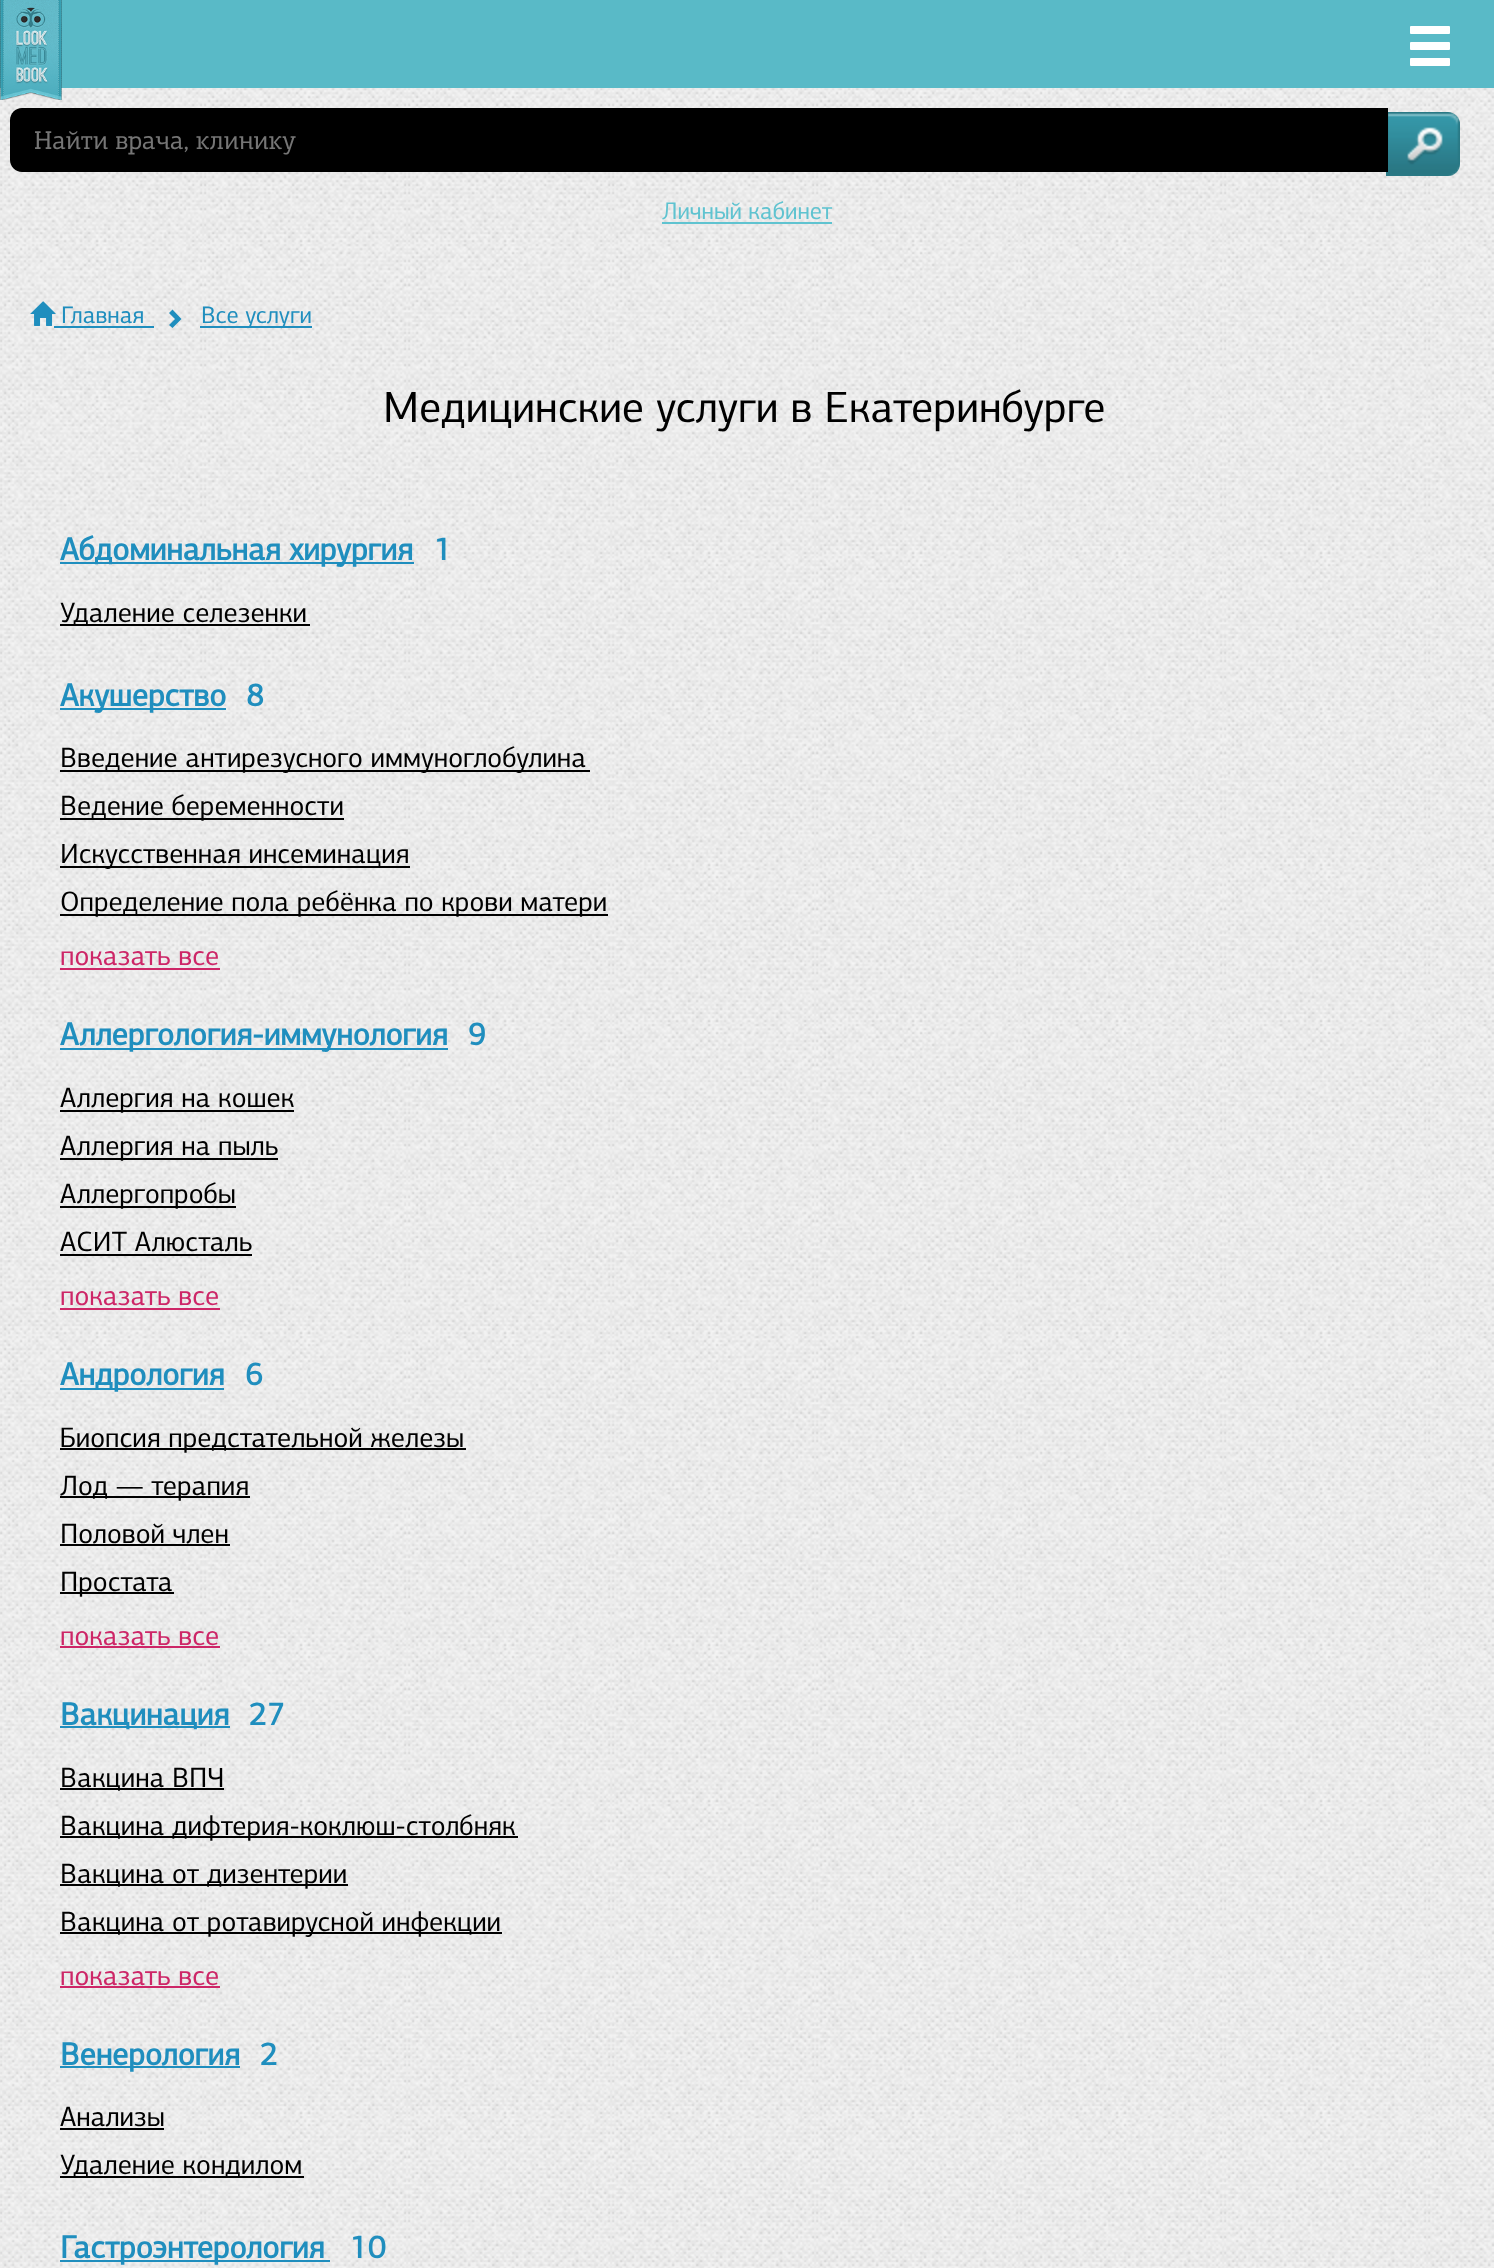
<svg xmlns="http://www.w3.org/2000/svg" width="1494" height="2268">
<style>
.a{font:26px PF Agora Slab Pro;fill:#757575}
.b{font:24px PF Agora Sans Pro;fill:#5fc3d0}
.c{font:24px PF Agora Sans Pro;fill:#1f8ebe}
.d{font:44px PF Agora Sans Pro;fill:#000}
.e{font:bold 32px PF Agora Sans Pro;fill:#1f8ebe}
.f{font:28px PF Agora Sans Pro;fill:#000}
.g{font:28px PF Agora Sans Pro;fill:#cd2667}
</style>
<rect width="100%" height="100%" fill="#59bac7"/>
<image href="3.png" x="0" y="88" width="1494" height="2180"/>
<image href="1.png" x="0" y="0" width="62" height="100"/>
<image href="2.png" x="1410" y="26" width="40" height="40"/>
<image href="4.png" x="1386" y="112" width="74" height="64"/>
<path fill="#000" d="M22 108h1366v64h-1366c-6.5 0-12-5.5-12-12v-40c0-6.5 5.5-12 12-12z"/>
<path fill="#5fc3d0" d="M662 222h170v2H662z"/>
<image href="5.png" x="30" y="301" width="26" height="25"/>
<path fill="#1f8ebe" d="M181.5 319l-9 9l-3.5-3l6-6l-6-6l3.5-3.5z"/>
<path fill="#1f8ebe" d="M54 326h100v2H54z"/>
<path fill="#1f8ebe" d="M200 326h112v2H200z"/>
<path fill="#1f8ebe" d="M60 562h354v2H60z"/>
<path fill="#000" d="M60 624h250v2H60z"/>
<path fill="#1f8ebe" d="M60 708h166v2H60z"/>
<path fill="#000" d="M60 770h530v2H60z"/>
<path fill="#000" d="M60 818h284v2H60z"/>
<path fill="#000" d="M60 866h350v2H60z"/>
<path fill="#000" d="M60 914h548v2H60z"/>
<path fill="#cd2667" d="M60 968h160v2H60z"/>
<path fill="#1f8ebe" d="M60 1048h388v2H60z"/>
<path fill="#000" d="M60 1110h234v2H60z"/>
<path fill="#000" d="M60 1158h218v2H60z"/>
<path fill="#000" d="M60 1206h176v2H60z"/>
<path fill="#000" d="M60 1254h192v2H60z"/>
<path fill="#cd2667" d="M60 1308h160v2H60z"/>
<path fill="#1f8ebe" d="M60 1388h164v2H60z"/>
<path fill="#000" d="M60 1448h406v2H60z"/>
<path fill="#000" d="M60 1496h190v2H60z"/>
<path fill="#000" d="M60 1544h170v2H60z"/>
<path fill="#000" d="M60 1592h114v2H60z"/>
<path fill="#cd2667" d="M60 1646h160v2H60z"/>
<path fill="#1f8ebe" d="M60 1726h170v2H60z"/>
<path fill="#000" d="M60 1788h164v2H60z"/>
<path fill="#000" d="M60 1836h458v2H60z"/>
<path fill="#000" d="M60 1884h288v2H60z"/>
<path fill="#000" d="M60 1932h442v2H60z"/>
<path fill="#cd2667" d="M60 1986h160v2H60z"/>
<path fill="#1f8ebe" d="M60 2066h180v2H60z"/>
<path fill="#000" d="M60 2128h104v2H60z"/>
<path fill="#000" d="M60 2176h244v2H60z"/>
<path fill="#1f8ebe" d="M60 2260h270v2H60z"/>
<text class="a" x="34" y="149">Найти врача, клинику</text>
<text class="b" x="662" y="219">Личный кабинет</text>
<text class="c" x="61" y="323">Главная</text>
<text class="c" x="201" y="323">Все услуги</text>
<text class="d" x="383" y="422">Медицинские услуги в Екатеринбурге</text>
<text class="e" x="60" y="560">Абдоминальная хирургия</text>
<text class="e" x="434" y="560">1</text>
<text class="f" x="60" y="622">Удаление селезенки</text>
<text class="e" x="60" y="706">Акушерство</text>
<text class="e" x="246" y="706">8</text>
<text class="f" x="60" y="767">Введение антирезусного иммуноглобулина</text>
<text class="f" x="60" y="815">Ведение беременности</text>
<text class="f" x="60" y="863">Искусственная инсеминация</text>
<text class="f" x="60" y="911">Определение пола ребёнка по крови матери</text>
<text class="g" x="60" y="965">показать все</text>
<text class="e" x="60" y="1045">Аллергология-иммунология</text>
<text class="e" x="468" y="1045">9</text>
<text class="f" x="60" y="1107">Аллергия на кошек</text>
<text class="f" x="60" y="1155">Аллергия на пыль</text>
<text class="f" x="60" y="1203">Аллергопробы</text>
<text class="f" x="60" y="1251">АСИТ Алюсталь</text>
<text class="g" x="60" y="1305">показать все</text>
<text class="e" x="60" y="1385">Андрология</text>
<text class="e" x="245" y="1385">6</text>
<text class="f" x="60" y="1447">Биопсия предстательной железы</text>
<text class="f" x="60" y="1495">Лод — терапия</text>
<text class="f" x="60" y="1543">Половой член</text>
<text class="f" x="60" y="1591">Простата</text>
<text class="g" x="60" y="1645">показать все</text>
<text class="e" x="60" y="1725">Вакцинация</text>
<text class="e" x="249" y="1725">27</text>
<text class="f" x="60" y="1787">Вакцина ВПЧ</text>
<text class="f" x="60" y="1835">Вакцина дифтерия-коклюш-столбняк</text>
<text class="f" x="60" y="1883">Вакцина от дизентерии</text>
<text class="f" x="60" y="1931">Вакцина от ротавирусной инфекции</text>
<text class="g" x="60" y="1985">показать все</text>
<text class="e" x="60" y="2065">Венерология</text>
<text class="e" x="260" y="2065">2</text>
<text class="f" x="60" y="2126">Анализы</text>
<text class="f" x="60" y="2174">Удаление кондилом</text>
<text class="e" x="60" y="2258">Гастроэнтерология</text>
<text class="e" x="350" y="2258">10</text>
</svg>
